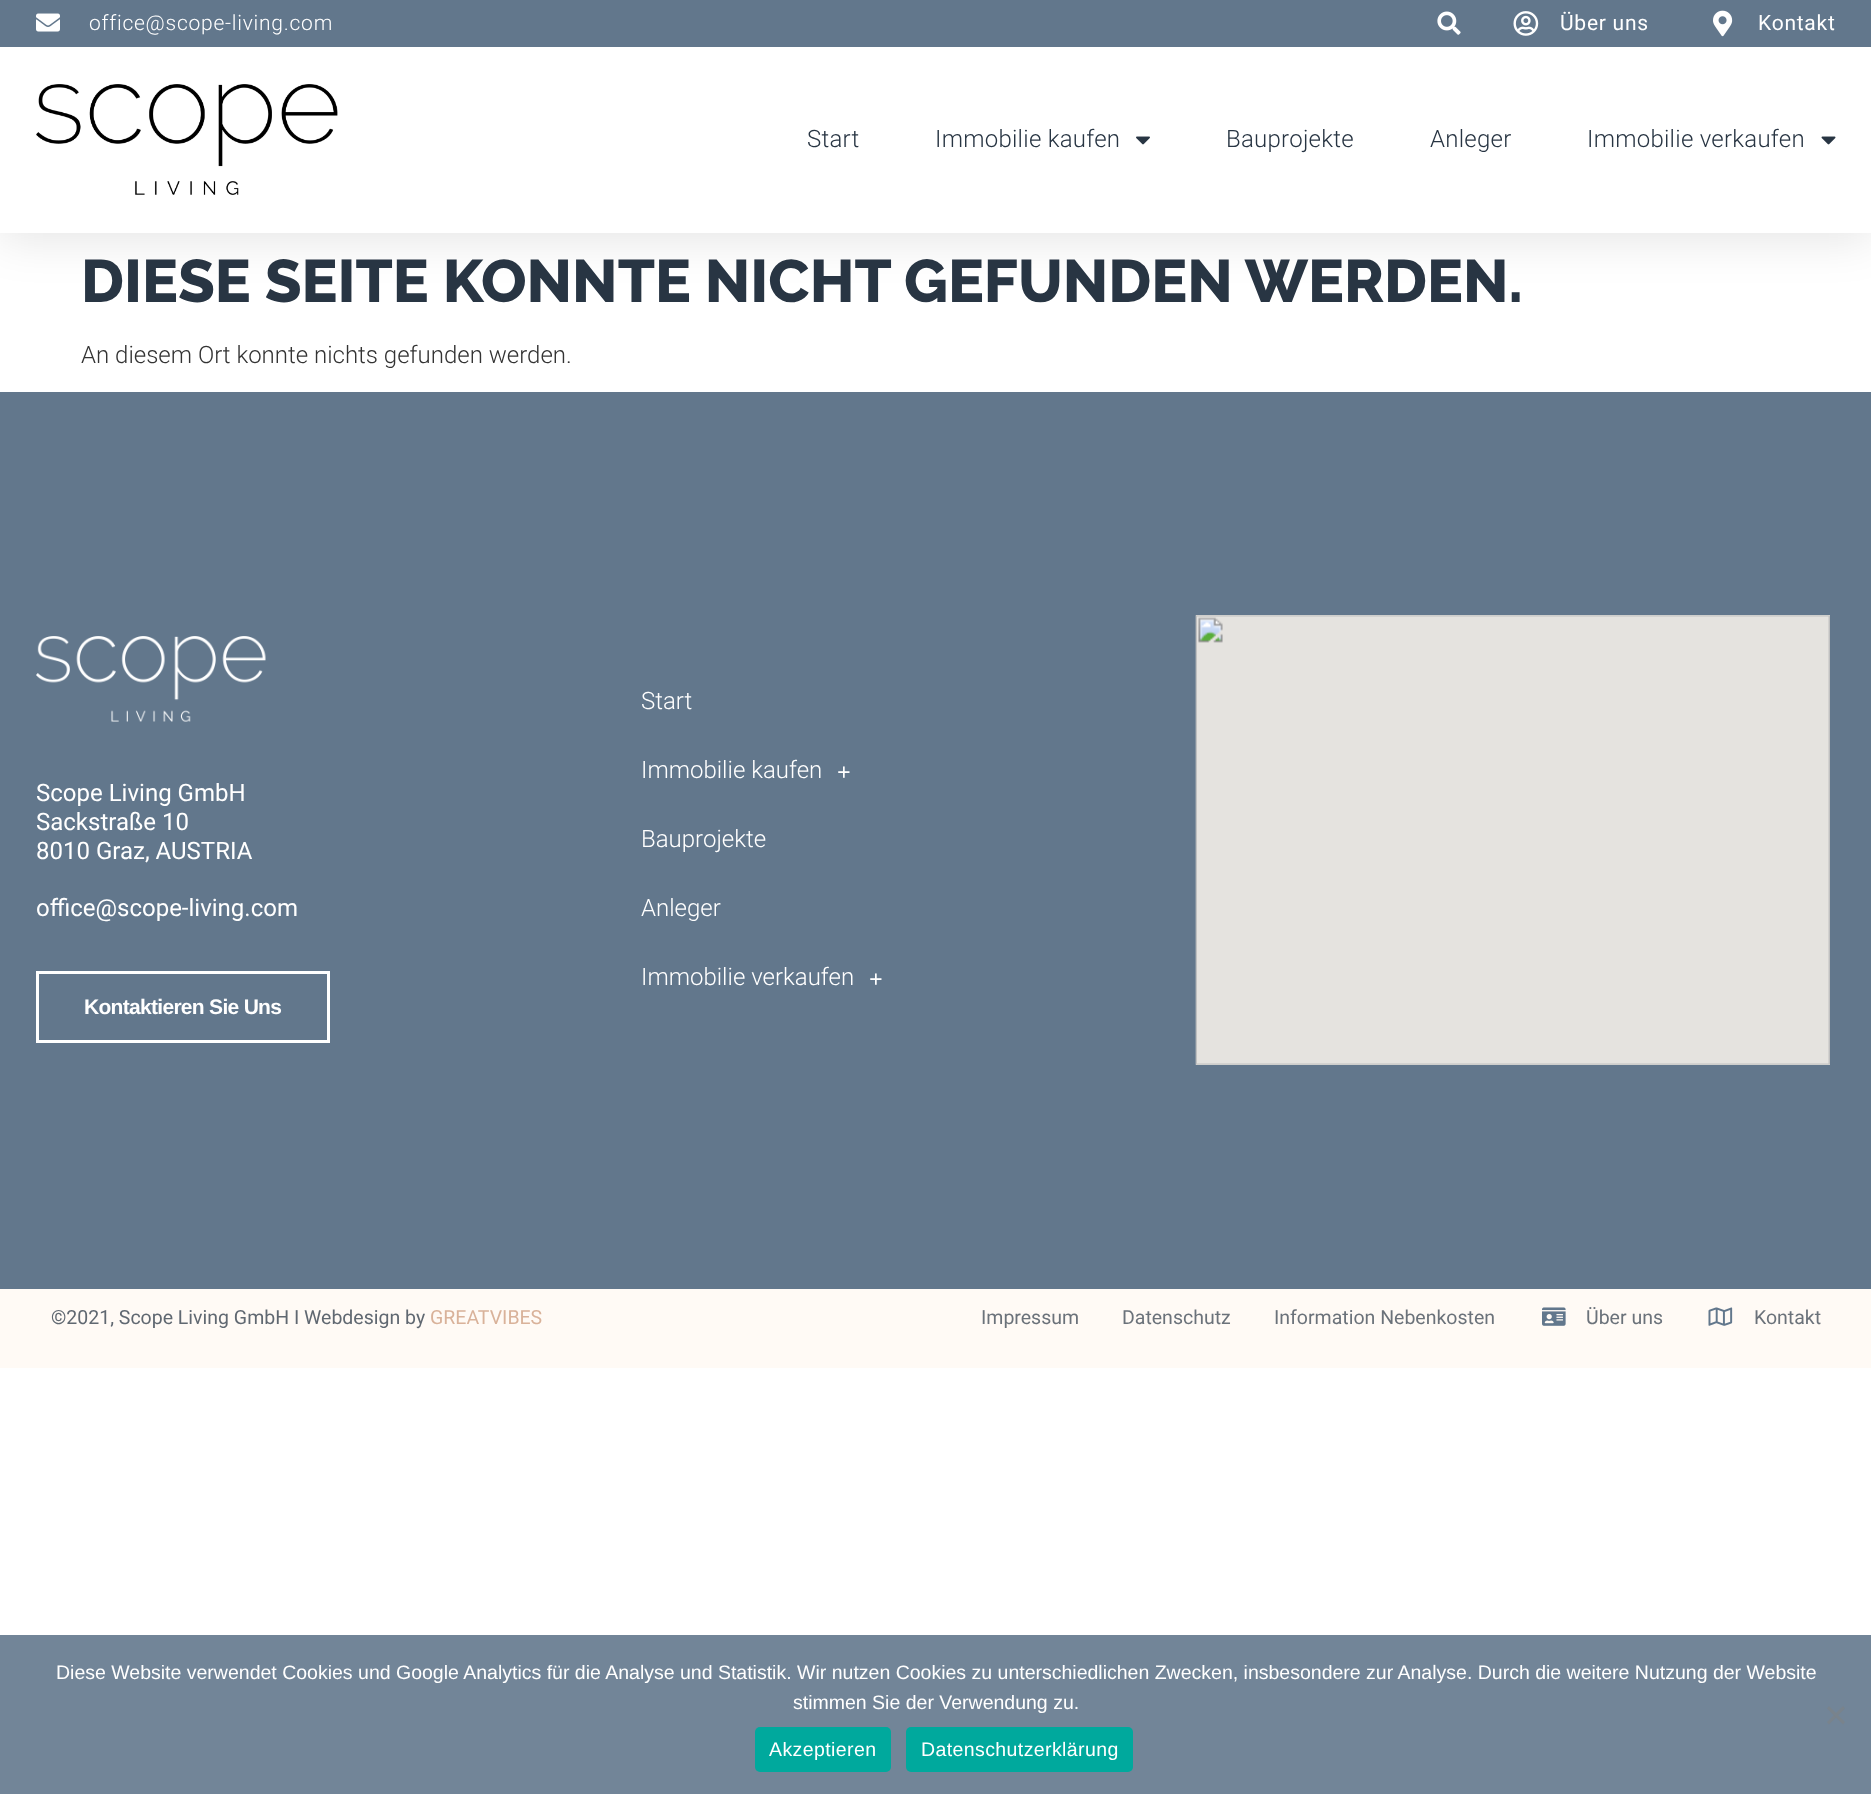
<svg xmlns="http://www.w3.org/2000/svg" width="1871" height="1794">
<style>
.a{font:300 21px Roboto;letter-spacing:0.75px;fill:#fff}
.b{font:21px Roboto;letter-spacing:0.75px;fill:#fff}
.c{font:300 24px Roboto;letter-spacing:0.25px;fill:#283543}
.d{font:800 60px Raleway;fill:#283543}
.e{font:300 24px Roboto;fill:#333}
.f{font:24px Roboto;fill:#fff}
.g{font:bold 21px Liberation Sans;letter-spacing:-0.7px;fill:#fff}
.h{font:300 24px Roboto;fill:#fff}
.i{font:bold 24px Liberation Serif;fill:#fff}
.j{font:19.5px Roboto;fill:#606871}
.k{font:19.5px Roboto;fill:#d9b29a}
.l{font:19.5px Roboto;fill:#6b727a}
.m{font:19.5px Liberation Sans;fill:#fff}
.n{font:19.5px Liberation Sans;letter-spacing:0.4px;fill:#fff}
</style>
<rect width="100%" height="100%" fill="#fff"/>
<path fill="#0000001a" filter="blur(22.5px)" d="M0 8h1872v232H0z"/>
<path fill="#62778c" d="M0 0h1871v47H0z"/>
<image href="1.png" x="36" y="13" width="24" height="19"/>
<image href="2.png" x="1437" y="11" width="24" height="24"/>
<image href="3.png" x="1513" y="11" width="26" height="25"/>
<image href="4.png" x="1713" y="10" width="20" height="27"/>
<path fill="#fff" d="M0 47h1871v186H0z"/>
<image href="5.png" x="36" y="84" width="302" height="111"/>
<image href="6.png" x="1136" y="136" width="14" height="9"/>
<image href="7.png" x="1821" y="136" width="15" height="9"/>
<path fill="#fffaf5" d="M0 1289h1871v79H0z"/>
<path fill="#62778c" d="M0 392h1871v897H0z"/>
<image href="8.png" x="36" y="636" width="230" height="86"/>
<path fill="none" stroke="#fff" stroke-width="3" d="M37.5 972.5h291v69H37.5z"/>
<image href="9.png" x="1195" y="615" width="635" height="450"/>
<image href="10.png" x="1542" y="1307" width="24" height="19"/>
<image href="11.png" x="1708" y="1307" width="25" height="19"/>
<path fill="#728598" d="M0 1635h1871v159H0z"/>
<path fill="#79838c" d="M1843 1706l2 2.5l-16 16l-2-2.5z"/>
<path fill="#79838c" d="M1827 1708.5l2-2.5l16 16l-2 2.5z"/>
<rect fill="#00a99d" x="755" y="1727" width="136" height="45" rx="5"/>
<rect fill="#00a99d" x="906" y="1727" width="227" height="45" rx="5"/>
<text class="a" x="89" y="30">office@scope-living.com</text>
<text class="b" x="1560" y="30">Über uns</text>
<text class="b" x="1758" y="30">Kontakt</text>
<text class="c" x="807" y="147">Start</text>
<text class="c" x="935" y="147">Immobilie kaufen</text>
<text class="c" x="1226" y="147">Bauprojekte</text>
<text class="c" x="1430" y="147">Anleger</text>
<text class="c" x="1587" y="147">Immobilie verkaufen</text>
<text class="d" x="81" y="302">DIESE SEITE KONNTE NICHT GEFUNDEN WERDEN.</text>
<text class="e" x="81" y="363">An diesem Ort konnte nichts gefunden werden.</text>
<text class="f" x="36" y="801">Scope Living GmbH</text>
<text class="f" x="36" y="830">Sackstraße 10</text>
<text class="f" x="36" y="859">8010 Graz, AUSTRIA</text>
<text class="f" x="36" y="916">office@scope-living.com</text>
<text class="g" x="84" y="1014">Kontaktieren Sie Uns</text>
<text class="h" x="641" y="709">Start</text>
<text class="h" x="641" y="778">Immobilie kaufen</text>
<text class="i" x="837" y="780">+</text>
<text class="h" x="641" y="847">Bauprojekte</text>
<text class="h" x="641" y="916">Anleger</text>
<text class="h" x="641" y="985">Immobilie verkaufen</text>
<text class="i" x="869" y="987">+</text>
<text class="j" x="51" y="1324">©2021, Scope Living GmbH I Webdesign by</text>
<text class="k" x="430" y="1324">GREATVIBES</text>
<text class="l" x="981" y="1324">Impressum</text>
<text class="l" x="1122" y="1324">Datenschutz</text>
<text class="l" x="1274" y="1324">Information Nebenkosten</text>
<text class="l" x="1586" y="1324">Über uns</text>
<text class="l" x="1754" y="1324">Kontakt</text>
<text class="m" x="56" y="1679">Diese Website verwendet Cookies und Google Analytics für die Analyse und Statistik. Wir nutzen Cookies zu unterschiedlichen Zwecken, insbesondere zur Analyse. Durch die weitere Nutzung der Website</text>
<text class="m" x="793" y="1709">stimmen Sie der Verwendung zu.</text>
<text class="n" x="769" y="1756">Akzeptieren</text>
<text class="n" x="921" y="1756">Datenschutzerklärung</text>
</svg>
